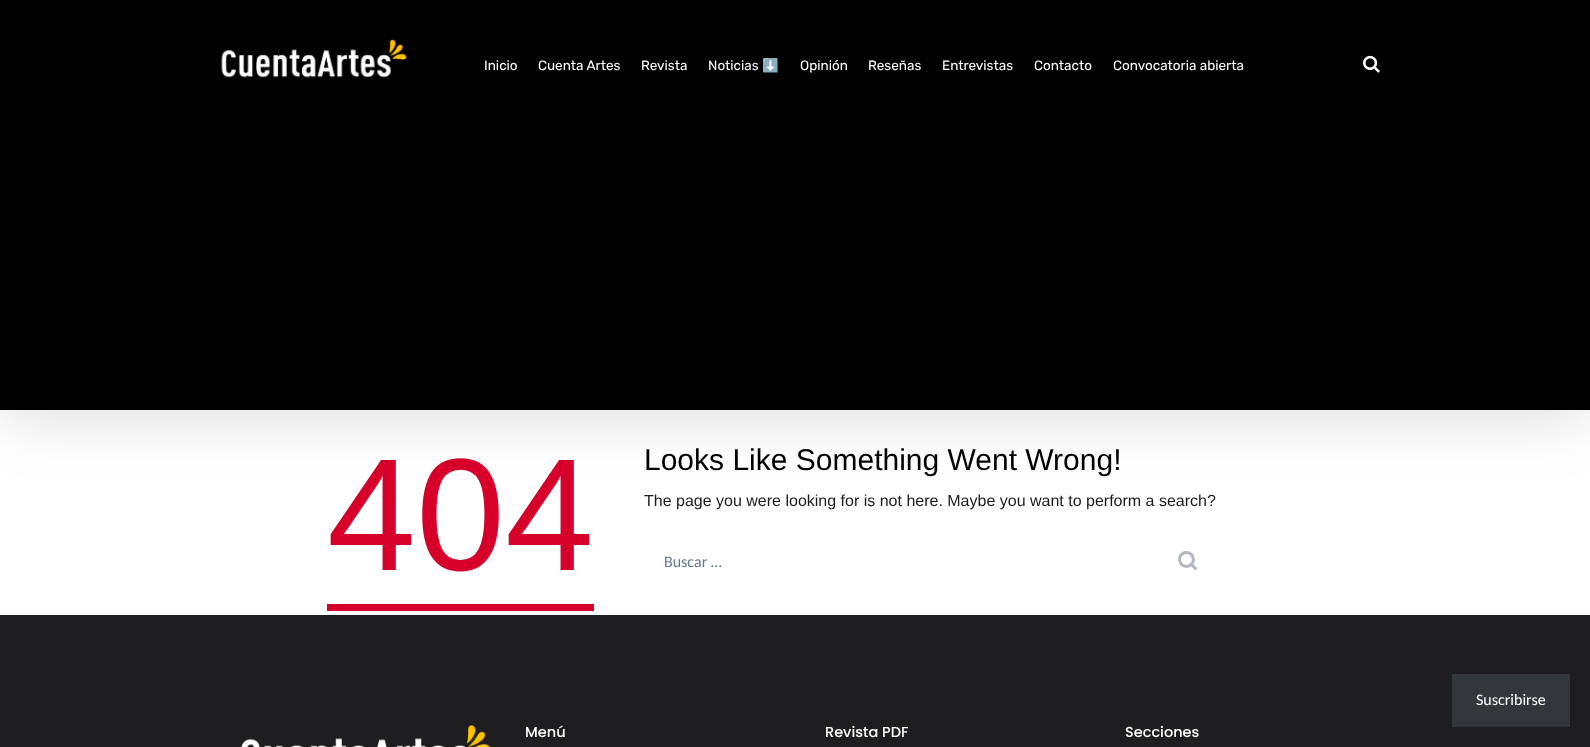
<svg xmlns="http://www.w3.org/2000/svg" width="1590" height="747">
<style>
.a{font:300 13.5px Rubik;fill:#fff}
.b{font:13.5px Noto Color Emoji;fill:#fff}
.c{font:160px Liberation Sans;fill:#d6002a}
.d{font:30px Liberation Sans;fill:#000}
.e{font:16px Liberation Sans;fill:#1b1b1b}
.f{font:16px Carlito;fill:#627792}
.g{font:500 14.5px Poppins;fill:#fff}
.h{font:16px Carlito;fill:#fff}
</style>
<rect width="100%" height="100%" fill="#fff"/>
<path fill="#0000001f" filter="blur(30px)" d="M0 10h1590v410H0z"/>
<path fill="#000" d="M0 0h1590v410H0z"/>
<image href="1.png" x="221" y="39" width="186" height="39"/>
<image href="2.png" x="1363" y="55" width="17" height="18"/>
<path fill="#d6002a" d="M327 604h267v7H327z"/>
<image href="3.png" x="1178" y="551" width="20" height="20"/>
<path fill="#1e1e20" d="M0 615h1590v132H0z"/>
<image href="4.png" x="241" y="725" width="249" height="22"/>
<path fill="#32373c" d="M1452 674h118v53H1452z"/>
<text class="a" x="484" y="70">Inicio</text>
<text class="a" x="538" y="70">Cuenta Artes</text>
<text class="a" x="641" y="70">Revista</text>
<text class="a" x="708" y="70">Noticias</text>
<text class="b" x="762" y="70">⬇️</text>
<text class="a" x="800" y="70">Opinión</text>
<text class="a" x="868" y="70">Reseñas</text>
<text class="a" x="942" y="70">Entrevistas</text>
<text class="a" x="1034" y="70">Contacto</text>
<text class="a" x="1113" y="70">Convocatoria abierta</text>
<text class="c" x="327" y="570">404</text>
<text class="d" x="644" y="470">Looks Like Something Went Wrong!</text>
<text class="e" x="644" y="506">The page you were looking for is not here. Maybe you want to perform a search?</text>
<text class="f" x="664" y="567">Buscar …</text>
<text class="g" x="525" y="737">Menú</text>
<text class="g" x="825" y="737">Revista PDF</text>
<text class="g" x="1125" y="737">Secciones</text>
<text class="h" x="1476" y="705">Suscribirse</text>
</svg>
